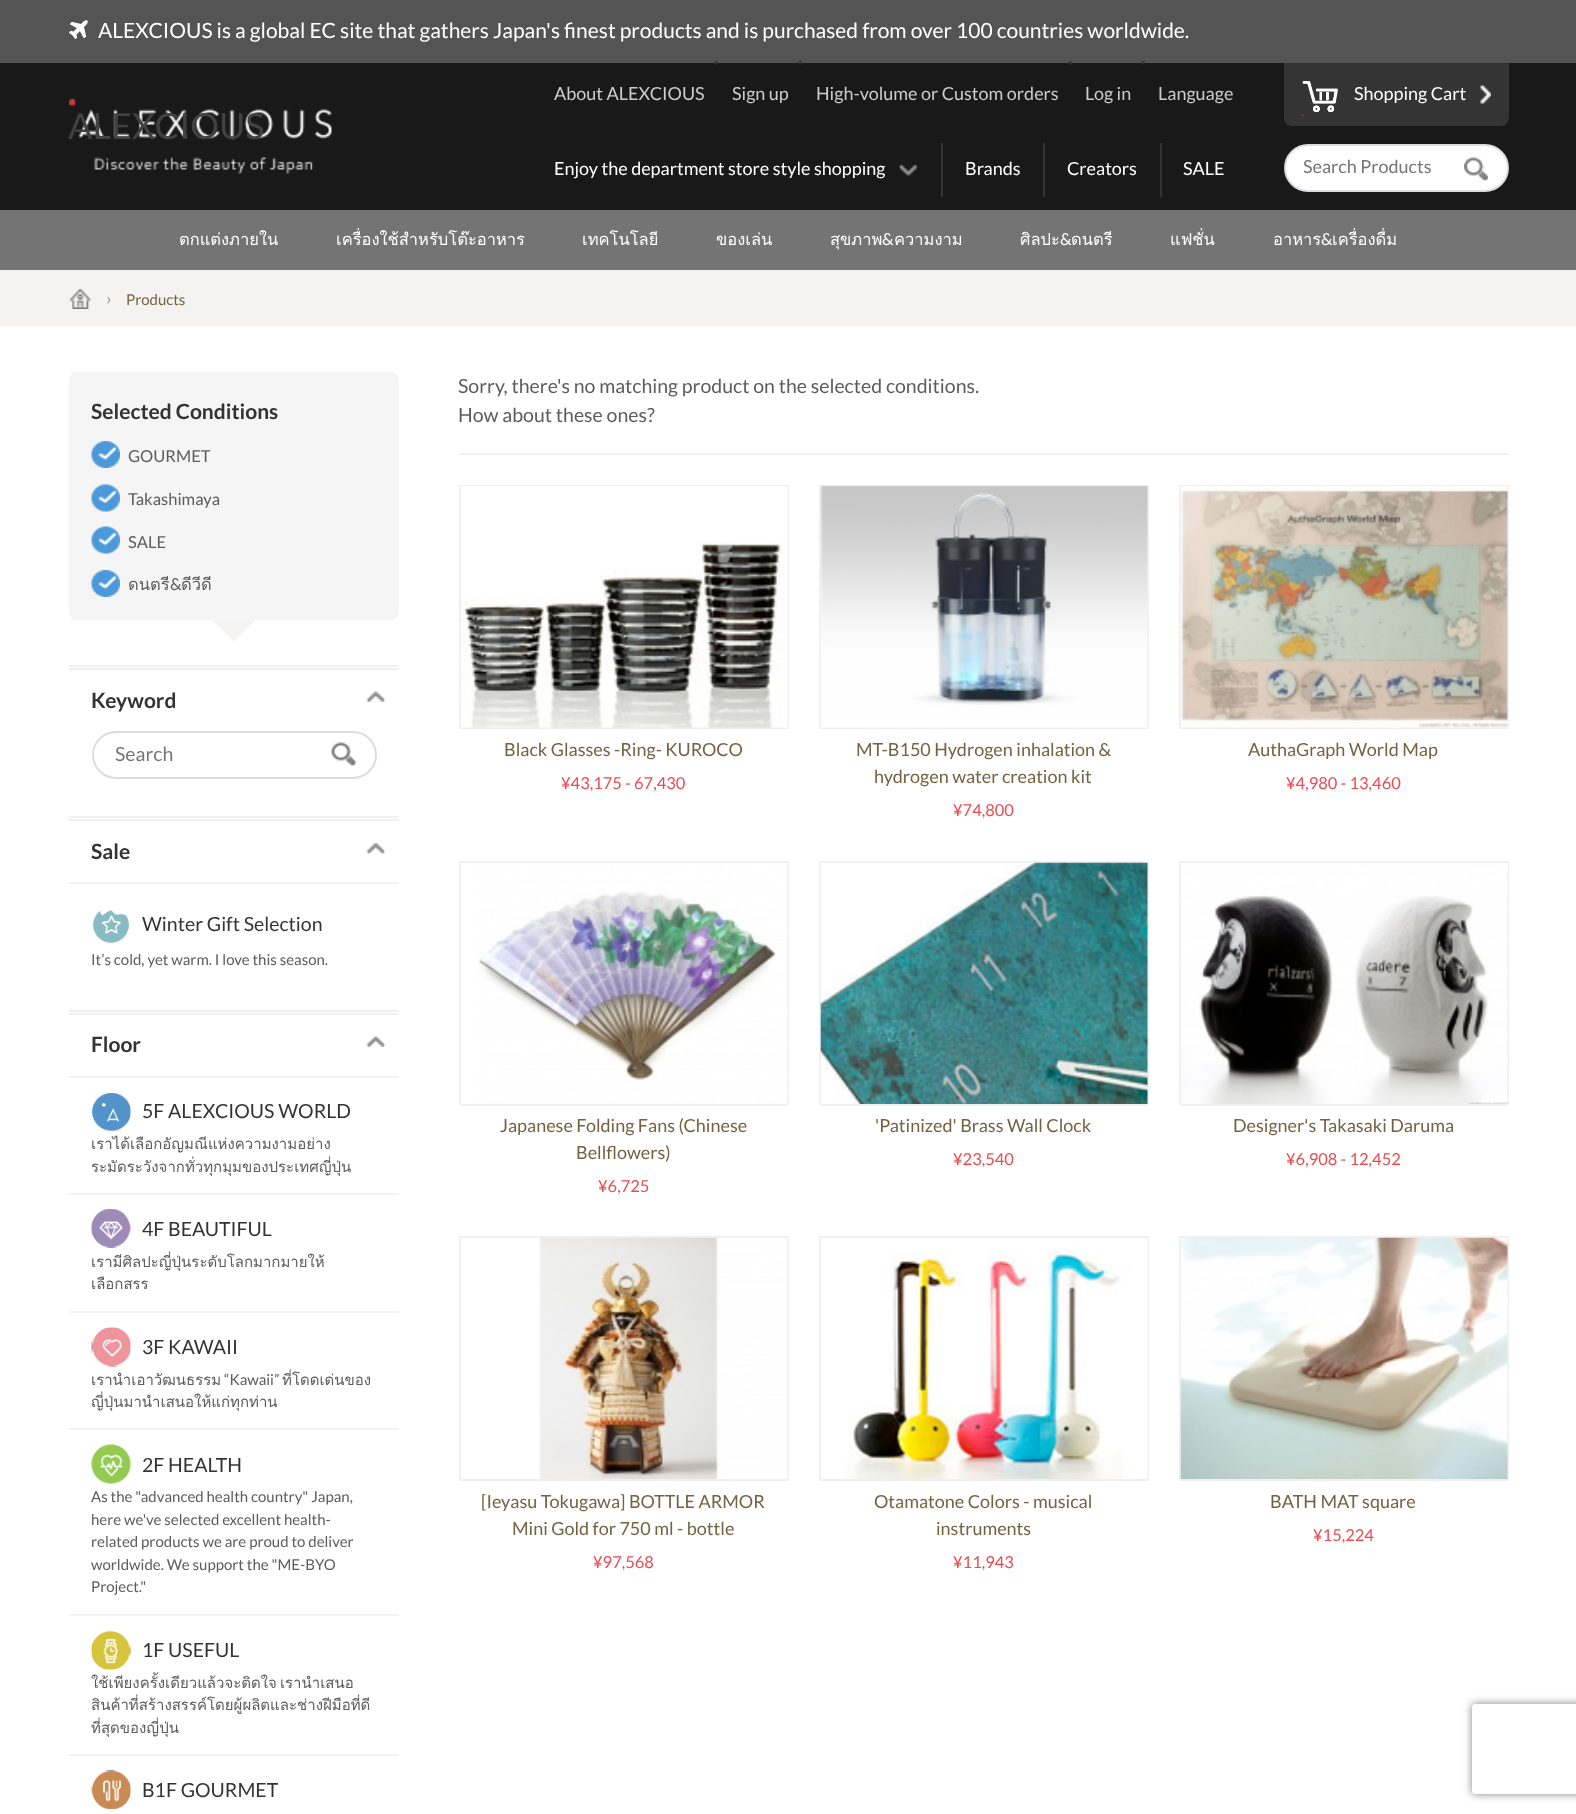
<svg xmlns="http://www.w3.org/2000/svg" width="1576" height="1814">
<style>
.a{font:21px Lato;fill:#fff}
.b{font:36px Lato;fill:#414141}
.c{font:18px Lato;fill:#ccc}
.d{font:27px DejaVu Sans;fill:#333}
.e{font:18px Lato;fill:#fff}
.f{font:18px Lato;fill:#757575}
.g{font:16.5px Loma;fill:#fff}
.h{font:16.5px Lato;fill:#fff}
.i{font:18px Lato;fill:#999}
.j{font:15px Lato;fill:#756241}
.k{font:bold 21px Lato;fill:#333}
.l{font:16.5px Lato;fill:#5c5c5c}
.m{font:16.5px Loma;fill:#5c5c5c}
.n{font:19.5px Lato;fill:#757575}
.o{font:19.5px Lato;fill:#333}
.p{font:15px Lato;fill:#5c5c5c}
.q{font:15px Loma;fill:#5c5c5c}
.r{font:19.5px Lato;fill:#5c5c5c}
.s{font:18px Lato;fill:#756241}
.t{font:16.5px Lato;fill:#ea4b51}
</style>
<defs>
<clipPath id="clip1"><path d="M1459 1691h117v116h-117zm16 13h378c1.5 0 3 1.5 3 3v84c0 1.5-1.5 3-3 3h-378c-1.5 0-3-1.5-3-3v-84c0-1.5 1.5-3 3-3z" clip-rule="evenodd"/></clipPath>
<clipPath id="clip2"><path d="M1304 156h156v23H1304z"/></clipPath>
</defs>
<rect width="100%" height="100%" fill="#fff"/>
<path fill="#545454" d="M0 0h1576v63H0z"/>
<image href="1.png" x="69" y="20" width="19" height="19"/>
<path fill="#191919" d="M0 63h1576v147H0z"/>
<image href="2.png" x="69" y="99" width="263" height="75"/>
<image href="3.png" x="898" y="165" width="20" height="11"/>
<path fill="#353434" d="M941 143h2v54H941z"/>
<path fill="#353434" d="M1043 143h2v54H1043z"/>
<path fill="#353434" d="M1160 143h2v54H1160z"/>
<path fill="#343434" d="M1284 63h225v55c0 4.5-3.5 8-8 8h-209c-4.5 0-8-3.5-8-8z"/>
<image href="4.png" x="1302" y="81" width="36" height="36"/>
<image href="5.png" x="1480" y="85" width="11" height="19"/>
<rect fill="#fff" stroke="#dcdbe1" stroke-width="2" x="1285" y="145" width="223" height="46" rx="23"/>
<image href="6.png" x="1464" y="157" width="24" height="24"/>
<path fill="#747474" d="M0 210h1576v60H0z"/>
<path fill="#f4f3f1" d="M0 270h1576v56H0z"/>
<image href="7.png" x="69" y="288" width="23" height="21"/>
<rect fill="#f5f5f5" x="69" y="372" width="330" height="248" rx="8"/>
<image href="8.png" x="91" y="441" width="29" height="27"/>
<image href="9.png" x="91" y="484" width="29" height="28"/>
<image href="9.png" x="91" y="526" width="29" height="28"/>
<image href="8.png" x="91" y="570" width="29" height="27"/>
<path fill="#f4f3f1" d="M212 620h44l-22 22z"/>
<path fill="#fff" d="M256 620v44l-22-22zm-44 44v-44l22 22z"/>
<path fill="#f0f0f0" d="M69 665h330v2H69z"/>
<path fill="#f0f0f0" d="M69 668h330v2H69z"/>
<image href="10.png" x="366" y="691" width="20" height="11"/>
<rect fill="none" stroke="#dcdbe1" stroke-width="2" x="93" y="732" width="283" height="46" rx="23"/>
<image href="11.png" x="331" y="742" width="25" height="24"/>
<path fill="#f0f0f0" d="M69 816h330v2H69z"/>
<path fill="#f0f0f0" d="M69 819h330v2H69z"/>
<image href="12.png" x="366" y="843" width="20" height="11"/>
<path fill="#f4f3f1" d="M69 882h330v2H69z"/>
<image href="13.png" x="93" y="910" width="36" height="33"/>
<path fill="#f0f0f0" d="M69 1010h330v2H69z"/>
<path fill="#f0f0f0" d="M69 1013h330v2H69z"/>
<image href="10.png" x="366" y="1036" width="20" height="11"/>
<path fill="#f4f3f1" d="M69 1076h330v2H69z"/>
<image href="14.png" x="91" y="1092" width="40" height="39"/>
<path fill="#f4f3f1" d="M69 1193h330v2H69z"/>
<image href="15.png" x="91" y="1209" width="40" height="39"/>
<path fill="#f4f3f1" d="M69 1311h330v2H69z"/>
<image href="16.png" x="91" y="1327" width="40" height="40"/>
<path fill="#f4f3f1" d="M69 1428h330v2H69z"/>
<image href="17.png" x="91" y="1444" width="40" height="40"/>
<path fill="#f4f3f1" d="M69 1614h330v2H69z"/>
<image href="18.png" x="91" y="1631" width="40" height="39"/>
<path fill="#f4f3f1" d="M69 1754h330v2H69z"/>
<image href="19.png" x="91" y="1770" width="40" height="39"/>
<path fill="#f0f0f0" d="M459 453h1050v2H459z"/>
<path fill="none" stroke="#f0f0f0" stroke-width="2" d="M460 486h328v242H460z"/>
<image href="20.png" x="461" y="486" width="327" height="242"/>
<path fill="none" stroke="#f0f0f0" stroke-width="2" d="M820 486h328v242H820z"/>
<image href="21.png" x="820" y="486" width="328" height="242"/>
<path fill="none" stroke="#f0f0f0" stroke-width="2" d="M1180 486h328v242H1180z"/>
<image href="22.png" x="1181" y="486" width="327" height="242"/>
<path fill="none" stroke="#f0f0f0" stroke-width="2" d="M460 862h328v243H460z"/>
<image href="23.png" x="478" y="863" width="310" height="241"/>
<path fill="none" stroke="#f0f0f0" stroke-width="2" d="M820 862h328v243H820z"/>
<image href="24.png" x="820" y="862" width="328" height="242"/>
<path fill="none" stroke="#f0f0f0" stroke-width="2" d="M1180 862h328v243H1180z"/>
<image href="25.png" x="1181" y="863" width="327" height="241"/>
<path fill="none" stroke="#f0f0f0" stroke-width="2" d="M460 1237h328v243H460z"/>
<image href="26.png" x="539" y="1237" width="249" height="242"/>
<path fill="none" stroke="#f0f0f0" stroke-width="2" d="M820 1237h328v243H820z"/>
<image href="27.png" x="846" y="1238" width="302" height="241"/>
<path fill="none" stroke="#f0f0f0" stroke-width="2" d="M1180 1237h328v243H1180z"/>
<image href="28.png" x="1180" y="1237" width="328" height="242"/>
<g clip-path="url(#clip1)">
<rect fill="#808080" filter="blur(4px)" x="1472" y="1704" width="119" height="90" rx="3"/>
</g>
<text class="a" x="98" y="38">ALEXCIOUS is a global EC site that gathers Japan's finest products and is purchased from over 100 countries worldwide.</text>
<text class="b" x="68" y="139">ALEXCIOUS</text>
<text class="c" x="554" y="100">About ALEXCIOUS</text>
<text class="d" x="712" y="72">⋅</text>
<text class="c" x="732" y="100">Sign up</text>
<text class="d" x="796" y="72">⋅</text>
<text class="c" x="816" y="100">High-volume or Custom orders</text>
<text class="d" x="1066" y="72">⋅</text>
<text class="c" x="1085" y="100">Log in</text>
<text class="d" x="1139" y="72">⋅</text>
<text class="c" x="1158" y="100">Language</text>
<text class="e" x="554" y="175">Enjoy the department store style shopping</text>
<text class="e" x="965" y="175">Brands</text>
<text class="e" x="1067" y="175">Creators</text>
<text class="e" x="1183" y="175">SALE</text>
<text class="e" x="1354" y="100">Shopping Cart</text>
<g clip-path="url(#clip2)">
<text class="f" x="1303" y="173">Search Products</text>
</g>
<text class="g" x="179" y="245">ตกแต่งภายใน</text>
<text class="g" x="336" y="245">เครื่องใช้สำหรับโต๊ะอาหาร</text>
<text class="g" x="582" y="245">เทคโนโลยี</text>
<text class="g" x="716" y="245">ของเล่น</text>
<text class="g" x="830" y="245">สุขภาพ</text>
<text class="h" x="882" y="245">&amp;</text>
<text class="g" x="894" y="245">ความงาม</text>
<text class="g" x="1020" y="245">ศิลปะ</text>
<text class="h" x="1060" y="245">&amp;</text>
<text class="g" x="1071" y="245">ดนตรี</text>
<text class="g" x="1170" y="245">แฟชั่น</text>
<text class="g" x="1273" y="245">อาหาร</text>
<text class="h" x="1321" y="245">&amp;</text>
<text class="g" x="1332" y="245">เครื่องดื่ม</text>
<text class="i" x="106" y="305">›</text>
<text class="j" x="126" y="305">Products</text>
<text class="k" x="91" y="419">Selected Conditions</text>
<text class="l" x="128" y="462">GOURMET</text>
<text class="l" x="128" y="505">Takashimaya</text>
<text class="l" x="128" y="548">SALE</text>
<text class="m" x="128" y="590">ดนตรี</text>
<text class="l" x="170" y="590">&amp;</text>
<text class="m" x="181" y="590">ดีวีดี</text>
<text class="k" x="91" y="708">Keyword</text>
<text class="n" x="115" y="761">Search</text>
<text class="k" x="91" y="859">Sale</text>
<text class="o" x="142" y="931">Winter Gift Selection</text>
<text class="p" x="91" y="965">It’s cold, yet warm. I love this season.</text>
<text class="k" x="91" y="1052">Floor</text>
<text class="o" x="142" y="1118">5F ALEXCIOUS WORLD</text>
<text class="q" x="91" y="1149">เราได้เลือกอัญมณีแห่งความงามอย่าง</text>
<text class="q" x="91" y="1172">ระมัดระวังจากทั่วทุกมุมของประเทศญี่ปุ่น</text>
<text class="o" x="142" y="1236">4F BEAUTIFUL</text>
<text class="q" x="91" y="1267">เรามีศิลปะญี่ปุ่นระดับโลกมากมายให้</text>
<text class="q" x="91" y="1289">เลือกสรร</text>
<text class="o" x="142" y="1354">3F KAWAII</text>
<text class="q" x="91" y="1385">เรานำเอาวัฒนธรรม</text>
<text class="p" x="224" y="1385">“Kawaii”</text>
<text class="q" x="282" y="1385">ที่โดดเด่นของ</text>
<text class="q" x="91" y="1407">ญี่ปุ่นมานำเสนอให้แก่ทุกท่าน</text>
<text class="o" x="142" y="1472">2F HEALTH</text>
<text class="p" x="91" y="1502">As the "advanced health country" Japan,</text>
<text class="p" x="91" y="1525">here we've selected excellent health-</text>
<text class="p" x="91" y="1547">related products we are proud to deliver</text>
<text class="p" x="91" y="1570">worldwide. We support the "ME-BYO</text>
<text class="p" x="91" y="1592">Project."</text>
<text class="o" x="142" y="1657">1F USEFUL</text>
<text class="q" x="91" y="1688" word-spacing="-2">ใช้เพียงครั้งเดียวแล้วจะติดใจ เรานำเสนอ</text>
<text class="q" x="91" y="1710">สินค้าที่สร้างสรรค์โดยผู้ผลิตและช่างฝีมือที่ดี</text>
<text class="q" x="91" y="1733">ที่สุดของญี่ปุ่น</text>
<text class="o" x="142" y="1797">B1F GOURMET</text>
<text class="r" x="458" y="393">Sorry, there's no matching product on the selected conditions.</text>
<text class="r" x="458" y="422">How about these ones?</text>
<text class="s" x="504" y="756">Black Glasses -Ring- KUROCO</text>
<text class="t" x="561" y="789">¥43,175 - 67,430</text>
<text class="s" x="856" y="756">MT-B150 Hydrogen inhalation &amp;</text>
<text class="s" x="874" y="783">hydrogen water creation kit</text>
<text class="t" x="953" y="816">¥74,800</text>
<text class="s" x="1248" y="756">AuthaGraph World Map</text>
<text class="t" x="1286" y="789">¥4,980 - 13,460</text>
<text class="s" x="500" y="1132">Japanese Folding Fans (Chinese</text>
<text class="s" x="576" y="1159">Bellflowers)</text>
<text class="t" x="598" y="1192">¥6,725</text>
<text class="s" x="875" y="1132">'Patinized' Brass Wall Clock</text>
<text class="t" x="953" y="1165">¥23,540</text>
<text class="s" x="1233" y="1132">Designer's Takasaki Daruma</text>
<text class="t" x="1286" y="1165">¥6,908 - 12,452</text>
<text class="s" x="481" y="1508">[Ieyasu Tokugawa] BOTTLE ARMOR</text>
<text class="s" x="512" y="1535">Mini Gold for 750 ml - bottle</text>
<text class="t" x="593" y="1568">¥97,568</text>
<text class="s" x="874" y="1508">Otamatone Colors - musical</text>
<text class="s" x="936" y="1535">instruments</text>
<text class="t" x="953" y="1568">¥11,943</text>
<text class="s" x="1270" y="1508">BATH MAT square</text>
<text class="t" x="1313" y="1541">¥15,224</text>
</svg>
